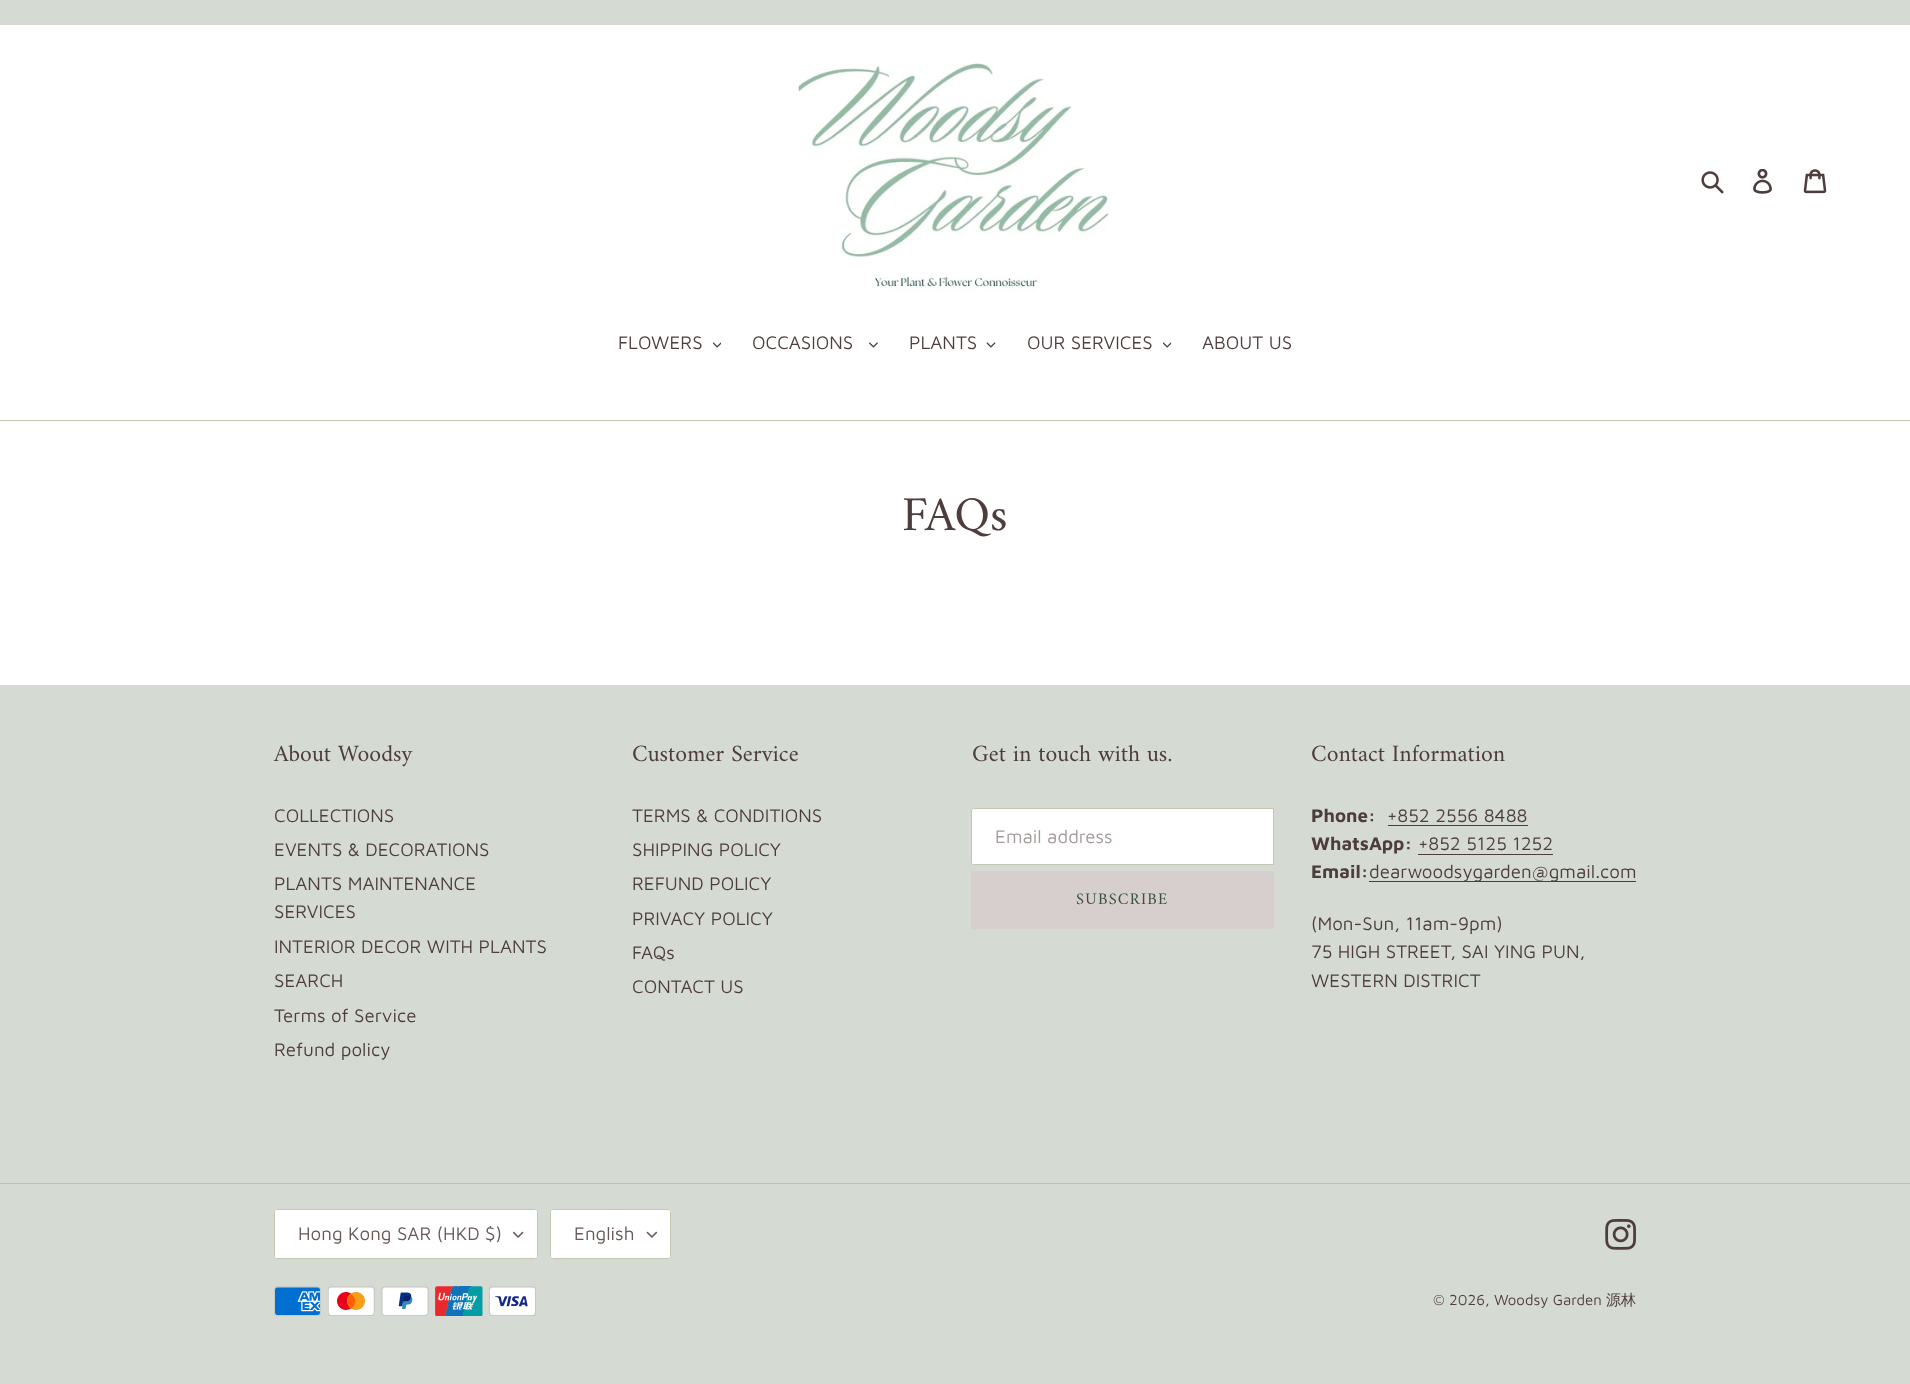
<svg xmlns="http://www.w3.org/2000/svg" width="1910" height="1384">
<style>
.a{font:18.75px Maven Pro;fill:#4e3d3d}
.b{font:49px Amiri;fill:#4e3d3d}
.c{font:23.75px Amiri;fill:#4e3d3d}
.d{font:18.75px Maven Pro;fill:#a49b9b}
.e{font:16.25px Amiri;letter-spacing:1.25px;fill:#385438}
.f{font:bold 18.75px Maven Pro;fill:#4e3d3d}
.g{font:18.75px Maven Pro;fill:#685858}
.h{font:15px Maven Pro;fill:#4e3d3d}
.i{font:500 15px WenQuanYi Zen Hei;fill:#4e3d3d}
</style>
<rect width="100%" height="100%" fill="#fff"/>
<path fill="#d5dad2" d="M0 0h1910v25H0z"/>
<image href="1.png" x="798" y="62" width="311" height="229"/>
<image href="2.png" x="1701" y="171" width="23" height="23"/>
<image href="3.png" x="1753" y="169" width="19" height="25"/>
<image href="4.png" x="1803" y="169" width="24" height="25"/>
<path fill="#c3c6b1" d="M0 420h1910v1H0z"/>
<image href="5.png" x="713" y="342" width="8" height="6"/>
<image href="6.png" x="869" y="342" width="9" height="6"/>
<image href="7.png" x="986" y="342" width="10" height="6"/>
<image href="5.png" x="1163" y="342" width="8" height="6"/>
<path fill="#d5dad2" d="M0 685h1910v699H0z"/>
<path fill="#fff" stroke="#c3c6b1" d="M973.5 808.5h300v56h-300c-1 0-2-1-2-2v-52c0-1 1-2 2-2z"/>
<path fill="#d7cece" d="M971 871h300.5c1.5 0 2.5 1 2.5 2.5v53c0 1.5-1 2.5-2.5 2.5h-300.5z"/>
<path fill="#4e3d3d" d="M1388 825h140v1H1388z"/>
<path fill="#4e3d3d" d="M1418 854h135v1H1418z"/>
<path fill="#4e3d3d" d="M1369 881h267v1H1369z"/>
<path fill="#bbc3b6" d="M0 1183h1910v1H0z"/>
<rect fill="#fff" x="274" y="1209" width="264" height="50" rx="2.5"/>
<image href="8.png" x="513" y="1231" width="11" height="7"/>
<rect fill="none" stroke="#c3c6b1" x="274.5" y="1209.5" width="263" height="49" rx="2"/>
<rect fill="#fff" x="550" y="1209" width="121" height="50" rx="2.5"/>
<image href="9.png" x="646" y="1231" width="12" height="7"/>
<rect fill="none" stroke="#c3c6b1" x="550.5" y="1209.5" width="120" height="49" rx="2"/>
<image href="10.png" x="1605" y="1219" width="31" height="31"/>
<image href="11.png" x="274" y="1286" width="47" height="30"/>
<image href="12.png" x="328" y="1286" width="47" height="30"/>
<image href="13.png" x="381" y="1286" width="48" height="30"/>
<image href="14.png" x="435" y="1286" width="48" height="30"/>
<image href="15.png" x="489" y="1286" width="47" height="30"/>
<text class="a" x="618" y="349">FLOWERS</text>
<text class="a" x="752" y="349">OCCASIONS</text>
<text class="a" x="909" y="349">PLANTS</text>
<text class="a" x="1027" y="349">OUR SERVICES</text>
<text class="a" x="1202" y="349">ABOUT US</text>
<text class="b" x="902" y="530">FAQs</text>
<text class="c" x="274" y="761">About Woodsy</text>
<text class="a" x="274" y="822">COLLECTIONS</text>
<text class="a" x="274" y="856">EVENTS &amp; DECORATIONS</text>
<text class="a" x="274" y="890">PLANTS MAINTENANCE</text>
<text class="a" x="274" y="918">SERVICES</text>
<text class="a" x="274" y="953">INTERIOR DECOR WITH PLANTS</text>
<text class="a" x="274" y="987">SEARCH</text>
<text class="a" x="274" y="1022">Terms of Service</text>
<text class="a" x="274" y="1056">Refund policy</text>
<text class="c" x="632" y="761">Customer Service</text>
<text class="a" x="632" y="822">TERMS &amp; CONDITIONS</text>
<text class="a" x="632" y="856">SHIPPING POLICY</text>
<text class="a" x="632" y="890">REFUND POLICY</text>
<text class="a" x="632" y="925">PRIVACY POLICY</text>
<text class="a" x="632" y="959">FAQs</text>
<text class="a" x="632" y="993">CONTACT US</text>
<text class="c" x="972" y="761">Get in touch with us.</text>
<text class="d" x="995" y="843">Email address</text>
<text class="e" x="1076" y="904">SUBSCRIBE</text>
<text class="c" x="1311" y="761">Contact Information</text>
<text class="f" x="1311" y="822">Phone:</text>
<text class="a" x="1387" y="822">+852 2556 8488</text>
<text class="f" x="1311" y="850">WhatsApp:</text>
<text class="a" x="1418" y="850">+852 5125 1252</text>
<text class="f" x="1311" y="878">Email:</text>
<text class="a" x="1369" y="878">dearwoodsygarden@gmail.com</text>
<text class="a" x="1311" y="930">(Mon-Sun, 11am-9pm)</text>
<text class="a" x="1311" y="958">75 HIGH STREET, SAI YING PUN,</text>
<text class="a" x="1311" y="987">WESTERN DISTRICT</text>
<text class="g" x="298" y="1240">Hong Kong SAR (HKD $)</text>
<text class="g" x="574" y="1240">English</text>
<text class="h" x="1433" y="1305">© 2026, Woodsy Garden</text>
<text class="i" x="1606" y="1305">源林</text>
</svg>
